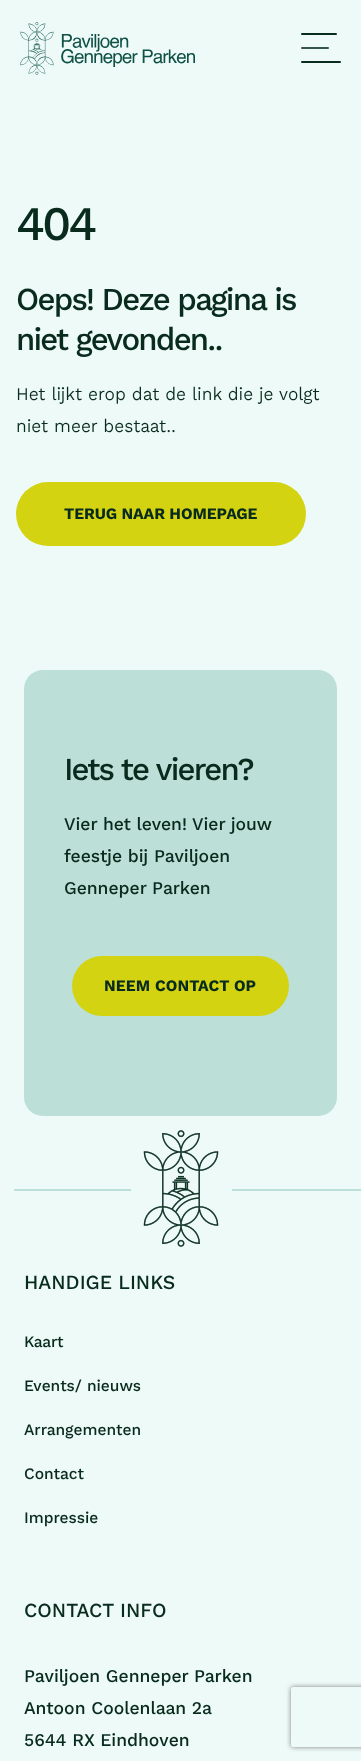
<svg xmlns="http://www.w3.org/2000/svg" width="361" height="1761">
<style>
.a{font:500 48px Kantumruy Pro;letter-spacing:-3px;fill:#082b1d}
.b{font:500 32px Kantumruy Pro;letter-spacing:-1.75px;fill:#082b1d}
.c{font:18px Kantumruy Pro;fill:#082b1d}
.d{font:bold 16px Kantumruy Pro;letter-spacing:-0.1px;fill:#082b1d}
.e{font:500 18px Kantumruy Pro;fill:#082b1d}
.f{font:bold 16px Kantumruy Pro;letter-spacing:0.1px;fill:#082b1d}
.g{font:500 20px Kantumruy Pro;fill:#082b1d}
.h{font:500 16px Kantumruy Pro;fill:#082b1d}
</style>
<defs>
<clipPath id="clip1"><path d="M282 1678h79v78h-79zm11 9h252c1 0 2 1 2 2v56c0 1-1 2-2 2h-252c-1 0-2-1-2-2v-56c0-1 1-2 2-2z" clip-rule="evenodd"/></clipPath>
</defs>
<rect width="100%" height="100%" fill="#edfaf7"/>
<image href="1.png" x="20" y="22" width="175" height="53"/>
<rect fill="#082b1d" x="301" y="33" width="36" height="2" rx="1"/>
<rect fill="#365449" x="301" y="47" width="28" height="2" rx="1"/>
<rect fill="#082b1d" x="301" y="61" width="40" height="2" rx="1"/>
<rect fill="#d3d312" x="16" y="482" width="290" height="64" rx="32"/>
<rect fill="#bcdfd7" x="24" y="670" width="313" height="446" rx="19"/>
<rect fill="#d3d312" x="72" y="956" width="217" height="60" rx="30"/>
<path fill="#bcdfd7" d="M14 1189h347v2H14z"/>
<image href="2.png" x="131" y="1130" width="101" height="117"/>
<g clip-path="url(#clip1)">
<rect fill="#808080" filter="blur(2.5px)" x="291" y="1687" width="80" height="60" rx="2"/>
</g>
<text class="a" x="16" y="240">404</text>
<text class="b" x="16" y="310">Oeps! Deze pagina is</text>
<text class="b" x="16" y="350">niet gevonden..</text>
<text class="c" x="16" y="400">Het lijkt erop dat de link die je volgt</text>
<text class="c" x="16" y="432">niet meer bestaat..</text>
<text class="d" x="64" y="519">TERUG NAAR HOMEPAGE</text>
<text class="b" x="64" y="780">Iets te vieren?</text>
<text class="e" x="64" y="830">Vier het leven! Vier jouw</text>
<text class="e" x="64" y="862">feestje bij Paviljoen</text>
<text class="e" x="64" y="894">Genneper Parken</text>
<text class="f" x="104" y="991">NEEM CONTACT OP</text>
<text class="g" x="24" y="1289">HANDIGE LINKS</text>
<text class="h" x="24" y="1347">Kaart</text>
<text class="h" x="24" y="1391">Events/ nieuws</text>
<text class="h" x="24" y="1435">Arrangementen</text>
<text class="h" x="24" y="1479">Contact</text>
<text class="h" x="24" y="1523">Impressie</text>
<text class="g" x="24" y="1617">CONTACT INFO</text>
<text class="e" x="24" y="1682">Paviljoen Genneper Parken</text>
<text class="e" x="24" y="1714">Antoon Coolenlaan 2a</text>
<text class="e" x="24" y="1746">5644 RX Eindhoven</text>
</svg>
